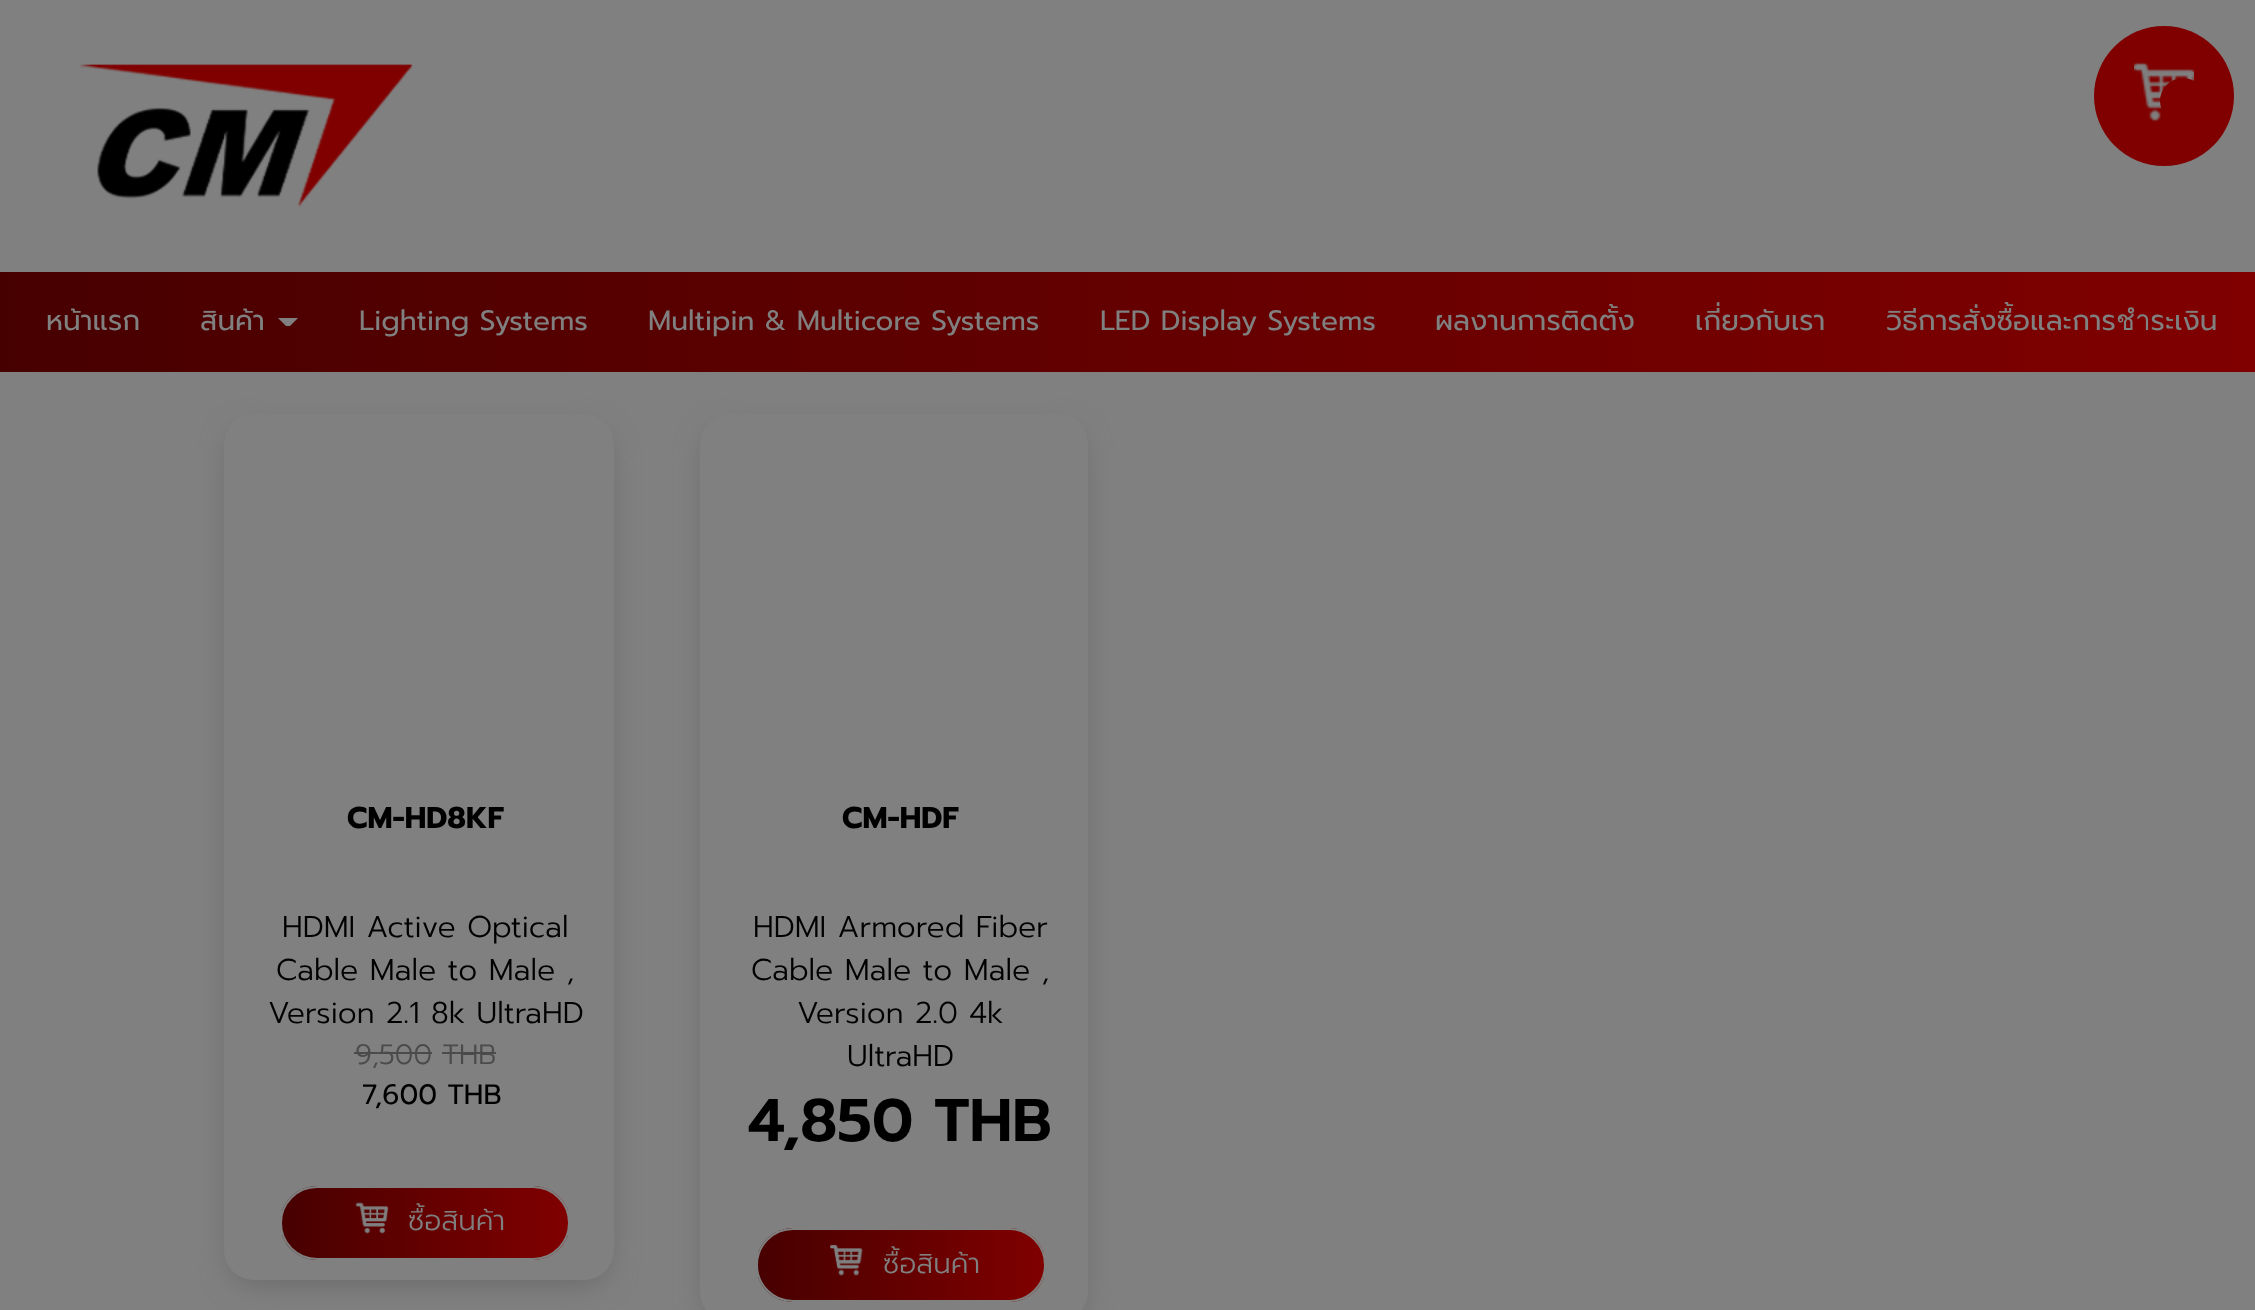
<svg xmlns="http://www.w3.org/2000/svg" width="2255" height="1310">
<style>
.a{font:28px Prompt;fill:#808080}
.b{font:bold 30px Prompt;fill:#000}
.c{font:300 30px Prompt;fill:#000}
.d{font:300 28px Prompt;fill:#4b4b4b}
.e{font:28px Prompt;fill:#000}
.f{font:300 28px Prompt;fill:#808080}
.g{font:600 60px Prompt;fill:#000}
</style>
<defs>
<linearGradient id="g1" gradientUnits="userSpaceOnUse" x1="0" y1="322" x2="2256" y2="322"><stop offset="0" stop-color="#470000"/><stop offset="1" stop-color="#800000"/></linearGradient>
<clipPath id="clip1"><rect x="280" y="1186" width="290" height="74" rx="37"/></clipPath>
<linearGradient id="g2" gradientUnits="userSpaceOnUse" x1="282" y1="1223" x2="568" y2="1223"><stop offset="0" stop-color="#470000"/><stop offset="1" stop-color="#800000"/></linearGradient>
<clipPath id="clip2"><rect x="756" y="1228" width="290" height="74" rx="37"/></clipPath>
<linearGradient id="g3" gradientUnits="userSpaceOnUse" x1="758" y1="1265" x2="1044" y2="1265"><stop offset="0" stop-color="#470000"/><stop offset="1" stop-color="#800000"/></linearGradient>
</defs>
<rect width="100%" height="100%" fill="#808080"/>
<circle fill="#800000" cx="2164" cy="96" r="70"/>
<image href="1.png" x="2134" y="62" width="60" height="60"/>
<circle fill="#800000" cx="2183" cy="101" r="23"/>
<image href="2.png" x="79" y="64" width="334" height="143"/>
<path fill="url(#g1)" d="M0 272h2255v100H0z"/>
<path fill="#808080" d="M278 318h20l-8 8h-4z"/>
<rect fill="#666" filter="blur(15px)" x="232" y="432" width="374" height="850" rx="22"/>
<rect fill="#808080" x="224" y="414" width="390" height="866" rx="30"/>
<path fill="#4b4b4b" d="M354 1052h78v2H354z"/>
<path fill="#4b4b4b" d="M442 1052h54v2H442z"/>
<g clip-path="url(#clip1)">
<path fill="url(#g2)" d="M282 1186h286v74H282z"/>
</g>
<rect fill="none" stroke="#808080" stroke-width="2" x="281" y="1187" width="288" height="72" rx="36"/>
<image href="3.png" x="355" y="1202" width="34" height="32"/>
<rect fill="#666" filter="blur(15px)" x="708" y="432" width="372" height="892" rx="22"/>
<rect fill="#808080" x="700" y="414" width="388" height="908" rx="30"/>
<g clip-path="url(#clip2)">
<path fill="url(#g3)" d="M758 1228h286v74H758z"/>
</g>
<rect fill="none" stroke="#808080" stroke-width="2" x="757" y="1229" width="288" height="72" rx="36"/>
<image href="4.png" x="830" y="1244" width="33" height="32"/>
<text class="a" x="46" y="330">หน้าแรก</text>
<text class="a" x="200" y="330">สินค้า</text>
<text class="a" x="359" y="330">Lighting Systems</text>
<text class="a" x="648" y="330">Multipin &amp; Multicore Systems</text>
<text class="a" x="1100" y="330">LED Display Systems</text>
<text class="a" x="1435" y="330">ผลงานการติดตั้ง</text>
<text class="a" x="1695" y="330">เกี่ยวกับเรา</text>
<text class="a" x="1886" y="330">วิธีการสั่งซื้อและการชำระเงิน</text>
<text class="b" x="347" y="828">CM-HD8KF</text>
<text class="c" x="282" y="937">HDMI Active Optical</text>
<text class="c" x="276" y="980">Cable Male to Male ,</text>
<text class="c" x="268" y="1023">Version 2.1 8k UltraHD</text>
<text class="d" x="355" y="1064">9,500 THB</text>
<text class="e" x="362" y="1104">7,600 THB</text>
<text class="f" x="408" y="1230">ซื้อสินค้า</text>
<text class="b" x="842" y="828">CM-HDF</text>
<text class="c" x="753" y="937">HDMI Armored Fiber</text>
<text class="c" x="751" y="980">Cable Male to Male ,</text>
<text class="c" x="797" y="1023">Version 2.0 4k</text>
<text class="c" x="847" y="1066">UltraHD</text>
<text class="g" x="748" y="1141">4,850 THB</text>
<text class="f" x="883" y="1273">ซื้อสินค้า</text>
</svg>
